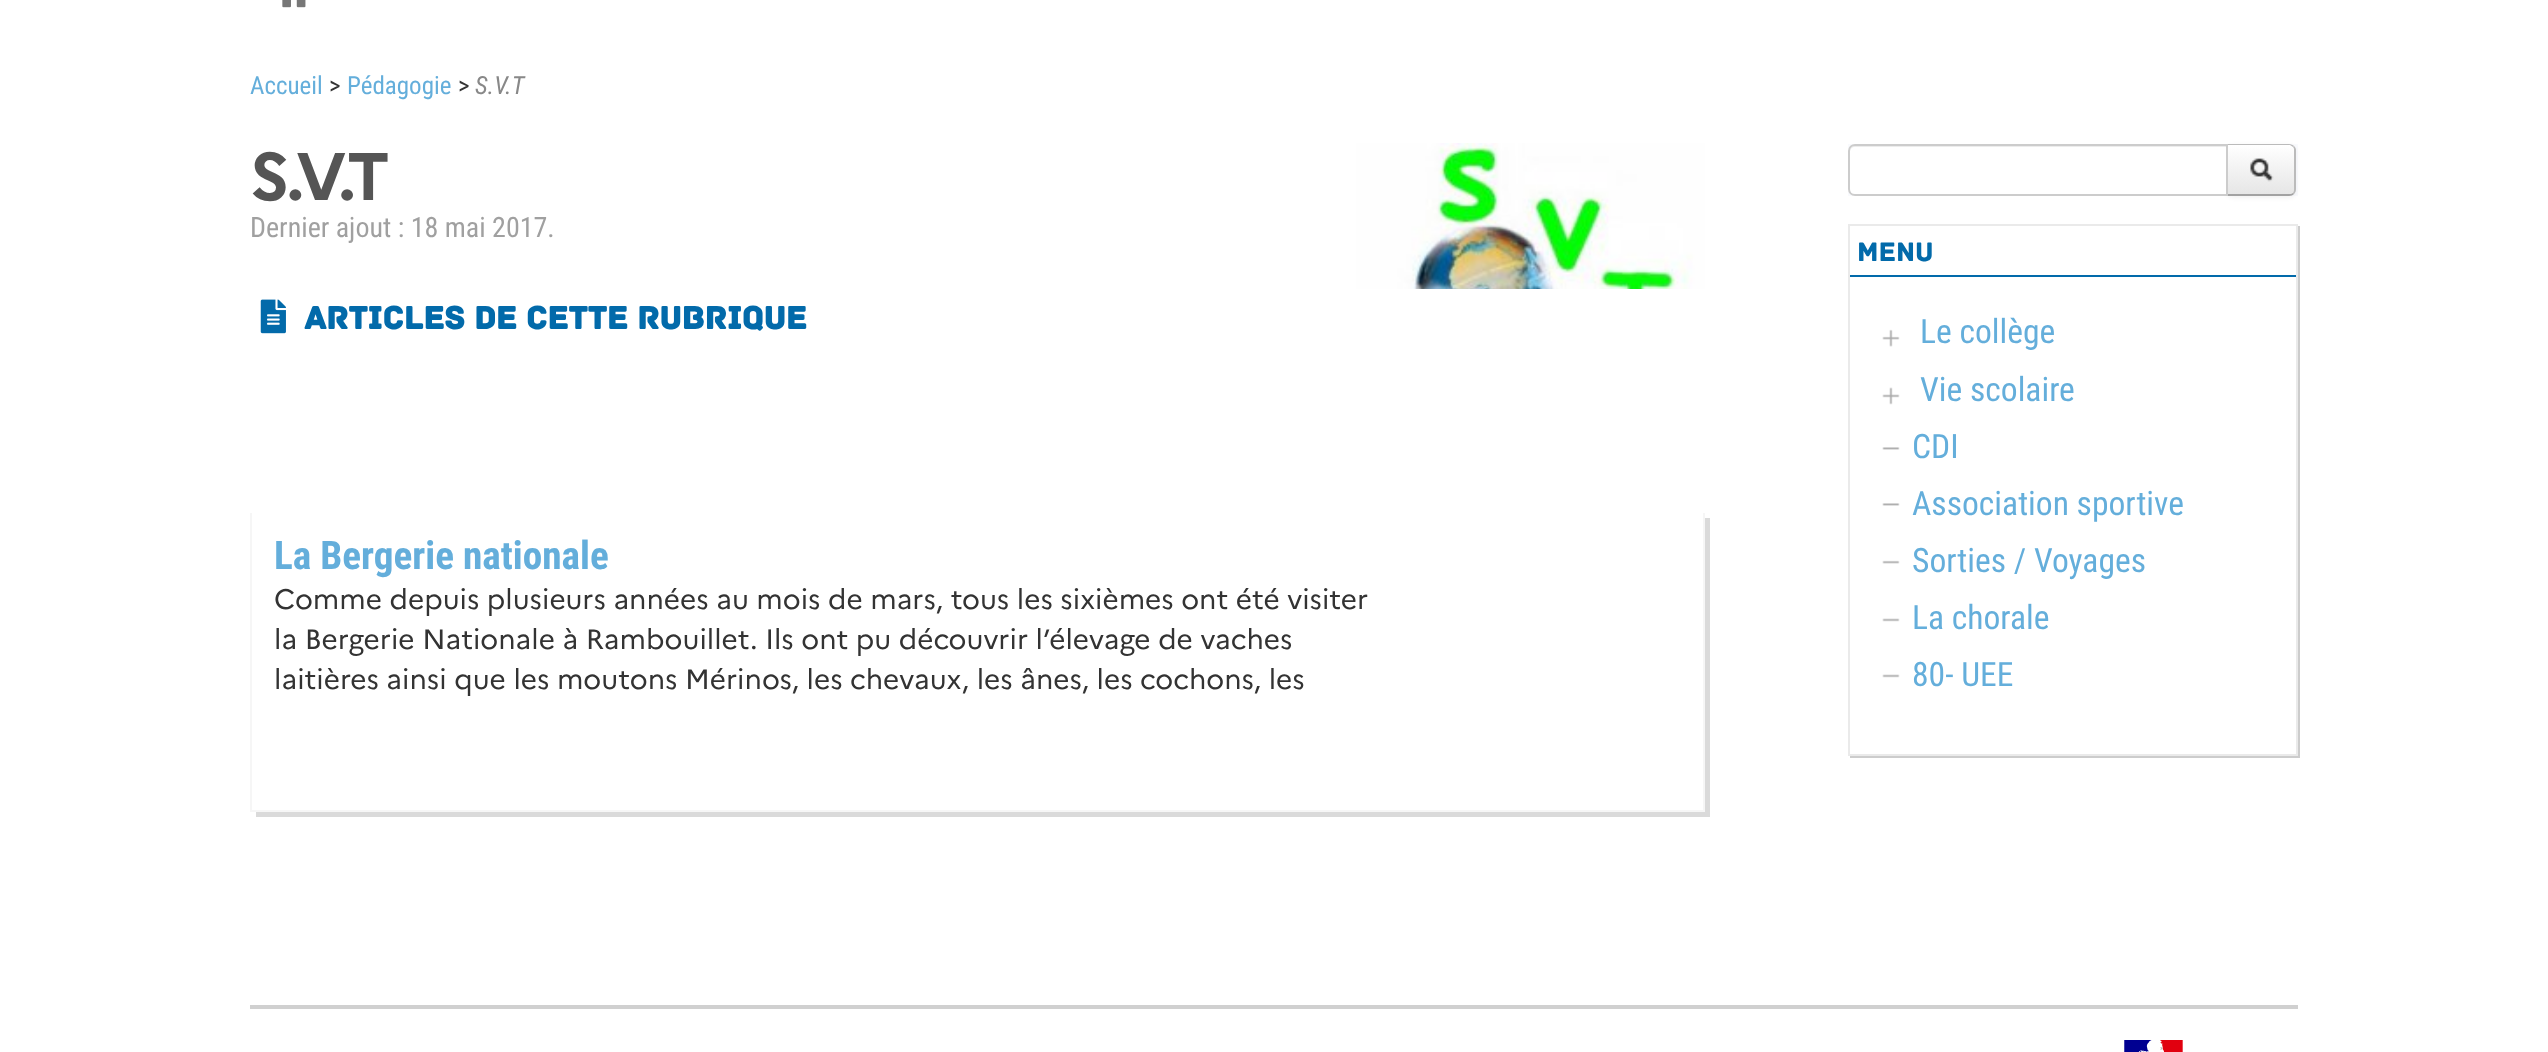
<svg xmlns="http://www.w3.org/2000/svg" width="2548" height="1052">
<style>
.a{font:25px Roboto Condensed;fill:#64aedb}
.b{font:25px Roboto Condensed;fill:#333}
.c{font:italic 25px Roboto Condensed;fill:#888}
.d{font:bold 67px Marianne;letter-spacing:-2px;fill:#555}
.e{font:28px Roboto Condensed;fill:#a0a0a0}
.f{font:bold 33.6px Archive;fill:#026aaa}
.g{font:bold 39.25px Roboto Condensed;fill:#64aedb}
.h{font:28px Marianne;fill:#333}
.i{font:28px Archive;fill:#026aaa}
.j{font:33.6px Roboto Condensed;fill:#64aedb}
</style>
<defs>
<clipPath id="clip1"><path d="M2226 144h63c4 0 7 3 7 7v38c0 4-3 7-7 7h-63z"/></clipPath>
<linearGradient id="g1" gradientUnits="userSpaceOnUse" x1="2261" y1="145" x2="2261" y2="194"><stop offset="0" stop-color="#fff"/><stop offset="1" stop-color="#e6e6e6"/></linearGradient>
</defs>
<rect width="100%" height="100%" fill="#fff"/>
<image href="1.png" x="282" y="0" width="24" height="8"/>
<image href="2.png" x="1356" y="143" width="349" height="146"/>
<image href="3.png" x="260" y="299" width="26" height="35"/>
<path fill="#dadada" d="M256 812v5h1454v-299h-6v294z"/>
<path fill="#f6f6f6" d="M1703 513h2v299H1703z"/>
<path fill="#f6f6f6" d="M250 810h1455v2H250z"/>
<path fill="#f6f6f6" d="M250 513h2v299H250z"/>
<path fill="#f9fafd" d="M1848 144h450v52H1848z"/>
<rect fill="#0000000d" filter="blur(2px)" x="2226" y="145" width="70" height="53" rx="7"/>
<g clip-path="url(#clip1)">
<path fill="url(#g1)" d="M2228 145h68v49H2228z"/>
</g>
<path fill="#bbb" d="M2228 145h62l3 2l1-1c-1-1-3-2-5-2h-63l2 2z"/>
<path fill="#bbb" d="M2294 146c1 1 2 2 2 4v39c0 2-1 4-2 5l-1-1c1-1 1-3 1-4v-39c0-1 0-2-1-3z"/>
<path fill="#a2a2a2" d="M2289 196c2 0 4-1 5-2l-1-1c-1 1-3 1-4 1h-61l-2 2z"/>
<path fill="#fff" d="M1855 144h373v52h-373c-4 0-7-3-7-7v-38c0-4 3-7 7-7z"/>
<path fill="#ececec" d="M1855 147h371v-2h-372c-4 1-4 4-4 7c0-3 2-5 5-5z"/>
<path fill="none" stroke="#ccc" stroke-width="2" d="M1855 145h372v50h-372c-3.5 0-6-2.5-6-6v-38c0-3.5 2.5-6 6-6z"/>
<image href="4.png" x="2250" y="158" width="24" height="24"/>
<path fill="#ccc" d="M1850 756v2h450v-532h-2v530z"/>
<path fill="none" stroke="#eaeaea" stroke-width="2" d="M1849 225h448v530H1849z"/>
<path fill="#026aaa" d="M1850 275h446v2H1850z"/>
<image href="5.png" x="1882" y="329" width="18" height="18"/>
<image href="6.png" x="1882" y="387" width="18" height="18"/>
<image href="7.png" x="1882" y="447" width="18" height="3"/>
<image href="7.png" x="1882" y="503" width="18" height="3"/>
<image href="8.png" x="1882" y="560" width="18" height="4"/>
<image href="9.png" x="1882" y="618" width="18" height="4"/>
<image href="9.png" x="1882" y="674" width="18" height="4"/>
<path fill="#d0d0d0" d="M250 1005h2048v4H250z"/>
<image href="10.png" x="2124" y="1040" width="59" height="12"/>
<text class="a" x="250" y="94">Accueil</text>
<text class="b" x="329" y="94">&gt;</text>
<text class="a" x="347" y="94">Pédagogie</text>
<text class="b" x="458" y="94">&gt;</text>
<text class="c" x="475" y="94">S.V.T</text>
<text class="d" x="250" y="200">S.V.T</text>
<text class="e" x="250" y="237">Dernier ajout : 18 mai 2017.</text>
<text class="f" x="304" y="329">Articles de cette rubrique</text>
<text class="g" x="274" y="569">La Bergerie nationale</text>
<text class="h" x="274" y="609">Comme depuis plusieurs années au mois de mars, tous les sixièmes ont été visiter</text>
<text class="h" x="274" y="649">la Bergerie Nationale à Rambouillet. Ils ont pu découvrir l’élevage de vaches</text>
<text class="h" x="274" y="689">laitières ainsi que les moutons Mérinos, les chevaux, les ânes, les cochons, les</text>
<text class="i" x="1857" y="261">Menu</text>
<text class="j" x="1920" y="343">Le collège</text>
<text class="j" x="1920" y="401">Vie scolaire</text>
<text class="j" x="1912" y="458">CDI</text>
<text class="j" x="1912" y="515">Association sportive</text>
<text class="j" x="1912" y="572">Sorties / Voyages</text>
<text class="j" x="1912" y="629">La chorale</text>
<text class="j" x="1912" y="686">80- UEE</text>
</svg>
